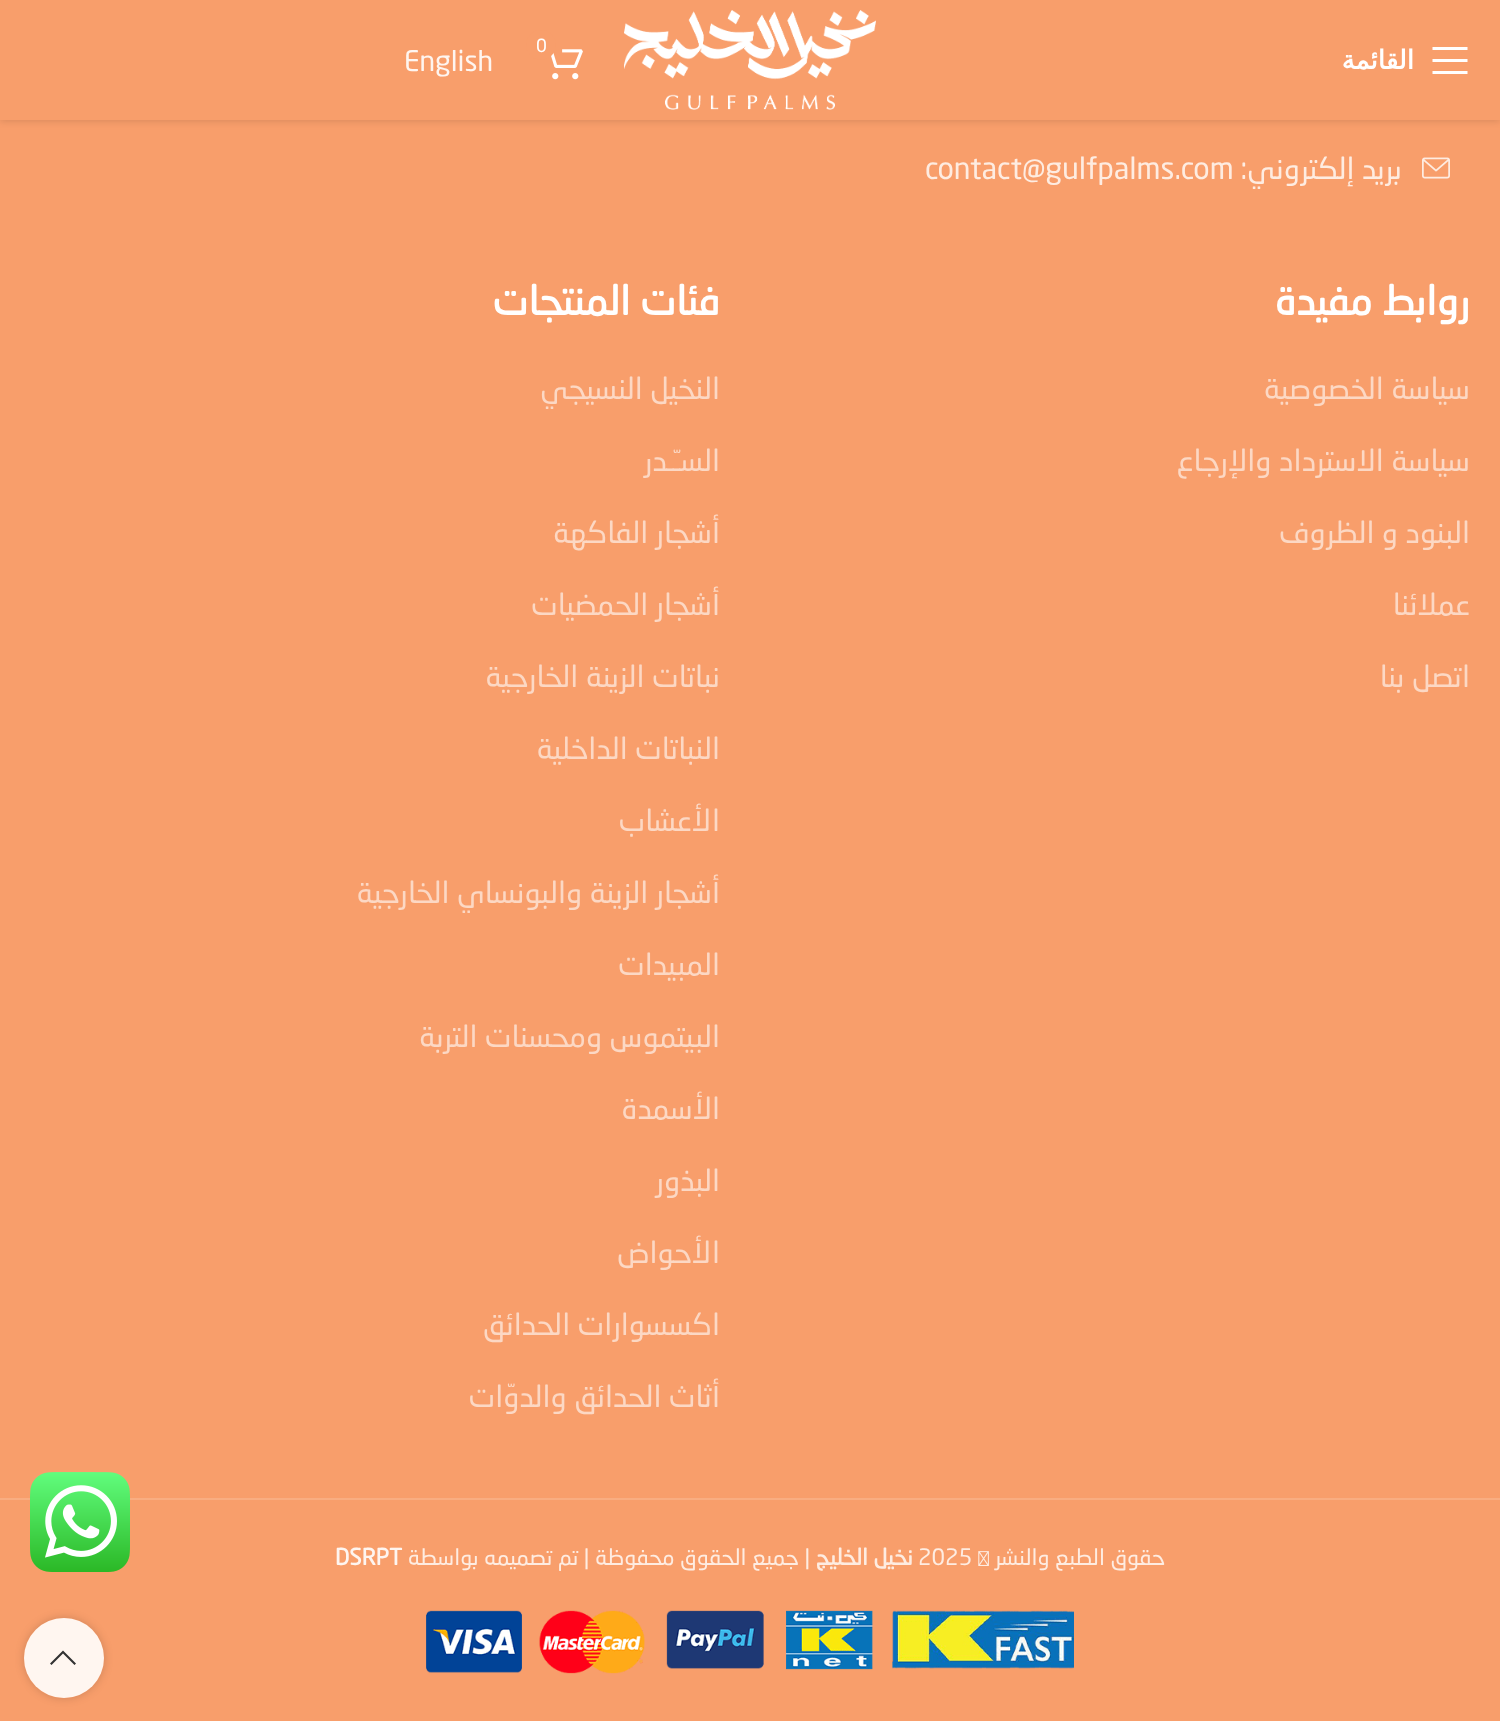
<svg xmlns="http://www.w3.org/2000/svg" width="1500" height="1721">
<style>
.a{font:bold 26px DejaVu Sans;direction:rtl;fill:#fff}
.b{font:18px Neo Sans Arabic;fill:#fff}
.c{font:28px Neo Sans Arabic;fill:#fef5f0}
.d{font:30px Neo Sans Arabic;direction:rtl;fill:#feece1}
.e{font:30px Neo Sans Arabic;fill:#feece1}
.f{font:bold 40px Neo Sans Arabic;direction:rtl;fill:#fff}
.g{font:30px Neo Sans Arabic;direction:rtl;fill:#fcd8c4}
.h{font:22.4px Neo Sans Arabic;direction:rtl;fill:#feece1}
.i{font:22.4px Neo Sans Arabic;fill:#feece1}
.j{font:bold 22.4px Neo Sans Arabic;direction:rtl;fill:#feece1}
.k{font:bold 22.4px Neo Sans Arabic;fill:#fef5f0}
</style>
<defs>
<clipPath id="clip1"><path d="M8 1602h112v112h-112zm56 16c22 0 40 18 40 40c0 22-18 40-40 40c-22 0-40-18-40-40c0-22 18-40 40-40z" clip-rule="evenodd"/></clipPath>
</defs>
<rect width="100%" height="100%" fill="#f89e6b"/>
<path fill="#0000001a" filter="blur(3px)" d="M0 2h1500v120H0z"/>
<path fill="#f89e6b" d="M0 0h1500v120H0z"/>
<path fill="#fff" d="M1432.5 50h35v-3h-35zm0 12h35v-3h-35zm0 12h35v-3h-35z"/>
<image href="1.png" x="624" y="10" width="252" height="100"/>
<image href="2.png" x="551" y="49" width="32" height="31"/>
<circle fill="#f89e6b" cx="541" cy="45" r="15"/>
<image href="3.png" x="1422" y="157" width="28" height="22"/>
<path fill="#f9ad81" d="M0 1498h1500v2H0z"/>
<image href="4.png" x="978" y="1551" width="11" height="15"/>
<image href="5.png" x="426" y="1610" width="648" height="64"/>
<image href="6.png" x="30" y="1472" width="100" height="100"/>
<g clip-path="url(#clip1)">
<rect fill="#0000002b" filter="blur(5px)" x="24" y="1618" width="80" height="80" rx="40"/>
</g>
<circle fill="#ffffffe6" cx="64" cy="1658" r="40"/>
<path fill="#333" d="M74.5 1665l1.5-1.5l-13-13l-13 13l1.5 1.5l11.5-11.5z"/>
<text class="a" x="1414" y="69">القائمة</text>
<text class="b" x="536" y="52">0</text>
<text class="c" x="404" y="71">English</text>
<text class="d" x="1402" y="179">بريد إلكتروني:</text>
<text class="e" x="925" y="179">contact@gulfpalms.com</text>
<text class="f" x="1470" y="315">روابط مفيدة</text>
<text class="g" x="1470" y="399">سياسة الخصوصية</text>
<text class="g" x="1470" y="471">سياسة الاسترداد والإرجاع</text>
<text class="g" x="1470" y="543">البنود و الظروف</text>
<text class="g" x="1470" y="615">عملائنا</text>
<text class="g" x="1470" y="687">اتصل بنا</text>
<text class="f" x="720" y="315">فئات المنتجات</text>
<text class="g" x="720" y="399">النخيل النسيجي</text>
<text class="g" x="720" y="471">السـّـدر</text>
<text class="g" x="720" y="543">أشجار الفاكهة</text>
<text class="g" x="720" y="615">أشجار الحمضيات</text>
<text class="g" x="720" y="687">نباتات الزينة الخارجية</text>
<text class="g" x="720" y="759">النباتات الداخلية</text>
<text class="g" x="720" y="831">الأعشاب</text>
<text class="g" x="720" y="903">أشجار الزينة والبونساي الخارجية</text>
<text class="g" x="720" y="975">المبيدات</text>
<text class="g" x="720" y="1047">البيتموس ومحسنات التربة</text>
<text class="g" x="720" y="1119">الأسمدة</text>
<text class="g" x="720" y="1191">البذور</text>
<text class="g" x="720" y="1263">الأحواض</text>
<text class="g" x="720" y="1335">اكسسوارات الحدائق</text>
<text class="g" x="720" y="1407">أثاث الحدائق والدوّات</text>
<text class="h" x="1165" y="1565">حقوق الطبع والنشر</text>
<text class="i" x="918" y="1565">2025</text>
<text class="j" x="913" y="1565">نخيل الخليج</text>
<text class="h" x="810" y="1565">| جميع الحقوق محفوظة | تم تصميمه بواسطة</text>
<text class="k" x="335" y="1565">DSRPT</text>
</svg>
